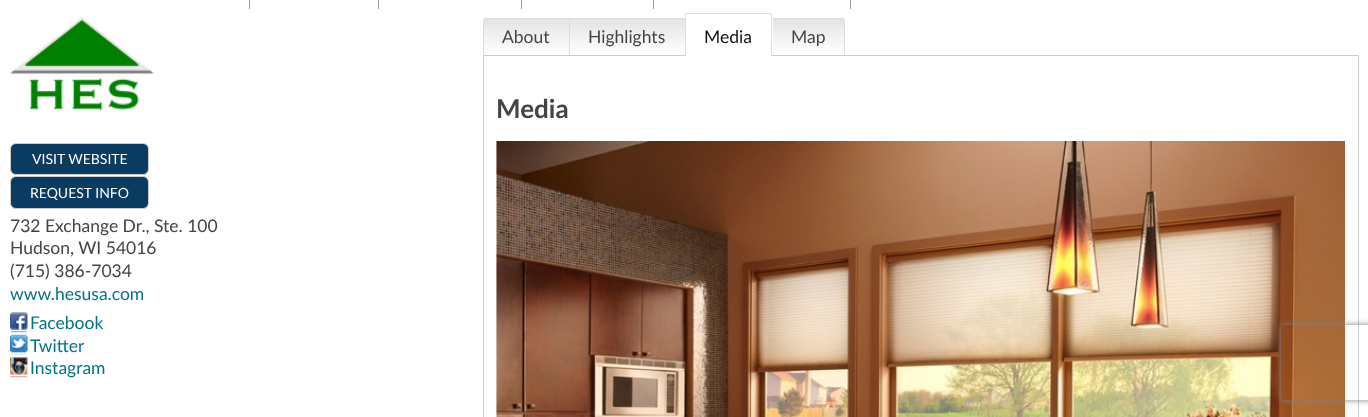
<svg xmlns="http://www.w3.org/2000/svg" width="1368" height="417">
<style>
.a{font:17.5px Lato;fill:#444}
.b{font:17.5px Lato;fill:#111}
.c{font:bold 26px Lato;fill:#444}
.d{font:14px Lato;fill:#fff}
.e{font:17.5px Lato;fill:#007582}
</style>
<defs>
<linearGradient id="g1" gradientUnits="userSpaceOnUse" x1="526" y1="19" x2="526" y2="55"><stop offset="0" stop-color="#e4e4e4"/><stop offset="1" stop-color="#fff"/></linearGradient>
<linearGradient id="g2" gradientUnits="userSpaceOnUse" x1="628" y1="19" x2="628" y2="55"><stop offset="0" stop-color="#e4e4e4"/><stop offset="1" stop-color="#fff"/></linearGradient>
<linearGradient id="g3" gradientUnits="userSpaceOnUse" x1="808" y1="19" x2="808" y2="55"><stop offset="0" stop-color="#e4e4e4"/><stop offset="1" stop-color="#fff"/></linearGradient>
<clipPath id="clip1"><path d="M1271 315h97v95h-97zm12.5 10h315c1.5 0 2.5 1 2.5 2.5v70c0 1.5-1 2.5-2.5 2.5h-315c-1.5 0-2.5-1-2.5-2.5v-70c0-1.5 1-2.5 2.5-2.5z" clip-rule="evenodd"/></clipPath>
</defs>
<rect width="100%" height="100%" fill="#fff"/>
<path fill="#999" d="M249 0h1v9H249z"/>
<path fill="#999" d="M378 0h1v9H378z"/>
<path fill="#999" d="M521 0h1v9H521z"/>
<path fill="#999" d="M653 0h1v9H653z"/>
<path fill="#999" d="M850 0h1v9H850z"/>
<path fill="url(#g1)" d="M485 19h84v36h-85v-35c0-.5 .5-1 1-1z"/>
<path fill="#ddd" d="M484 18h202v1H484z"/>
<path fill="#ddd" d="M569 18h1v37H569z"/>
<path fill="#ddd" d="M483 19h1v36H483z"/>
<path fill="url(#g2)" d="M570 19h115v33H570z"/>
<path fill="none" stroke="#ccc" d="M483.5 55.5h875v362H483.5z"/>
<path fill="#fff" d="M687 14h83c.5 0 1 .5 1 1v41h-85v-41c0-.5 .5-1 1-1z"/>
<path fill="#ddd" d="M686 13h85v1H686z"/>
<path fill="#ddd" d="M771 14h1v42H771z"/>
<path fill="#ddd" d="M685 14h1v42H685z"/>
<path fill="url(#g3)" d="M773 19h70c.5 0 1 .5 1 1v35h-71z"/>
<path fill="#ddd" d="M773 18h71v1H773z"/>
<path fill="#ddd" d="M844 19h1v36H844z"/>
<image href="1.png" x="496" y="141" width="849" height="276"/>
<image href="2.png" x="10" y="17" width="144" height="93"/>
<rect fill="#0a3b61" stroke="#ccc" x="10.5" y="143.5" width="138" height="31" rx="5.5"/>
<rect fill="#0a3b61" stroke="#ccc" x="10.5" y="176.5" width="138" height="32" rx="5.5"/>
<image href="3.png" x="10" y="312" width="18" height="21"/>
<image href="4.png" x="10" y="334" width="18" height="21"/>
<image href="5.png" x="10" y="357" width="18" height="21"/>
<g clip-path="url(#clip1)">
<rect fill="#808080" filter="blur(3px)" x="1281" y="325" width="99" height="75" rx="2.5"/>
</g>
<text class="a" x="502" y="43">About</text>
<text class="a" x="588" y="43">Highlights</text>
<text class="b" x="704" y="43">Media</text>
<text class="a" x="791" y="43">Map</text>
<text class="c" x="496" y="118">Media</text>
<text class="d" x="32" y="164">VISIT WEBSITE</text>
<text class="d" x="30" y="198">REQUEST INFO</text>
<text class="a" x="10" y="232">732 Exchange Dr., Ste. 100</text>
<text class="a" x="10" y="254">Hudson, WI 54016</text>
<text class="a" x="10" y="277">(715) 386-7034</text>
<text class="e" x="10" y="300">www.hesusa.com</text>
<text class="e" x="30" y="329">Facebook</text>
<text class="e" x="30" y="352">Twitter</text>
<text class="e" x="30" y="374">Instagram</text>
</svg>
